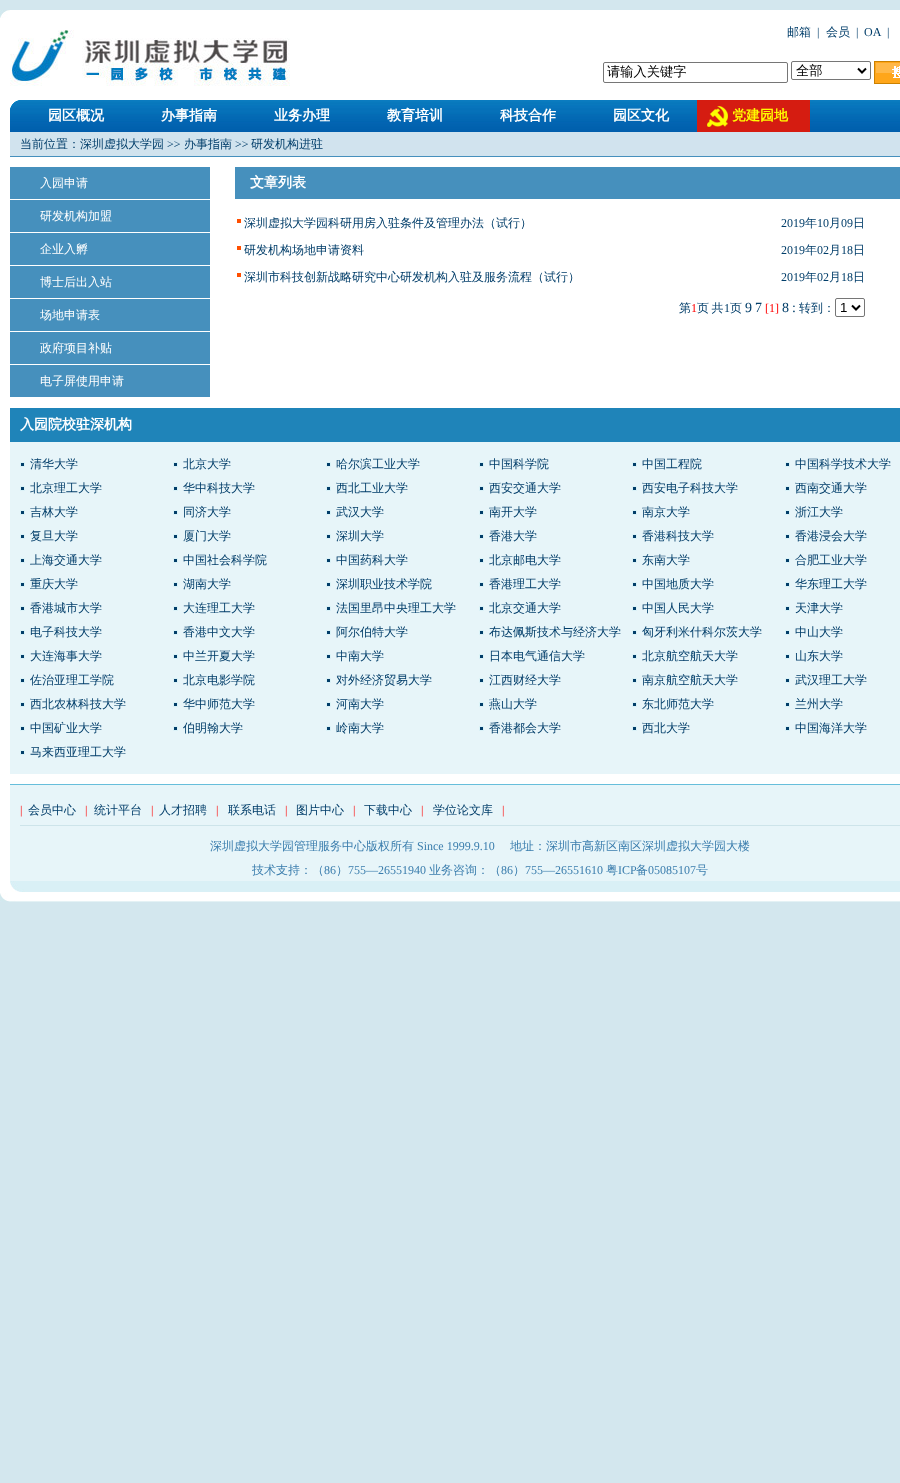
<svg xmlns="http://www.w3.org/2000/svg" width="900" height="1483">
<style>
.a{font:500 13.25px WenQuanYi Zen Hei;fill:#000}
.b{font:500 12px WenQuanYi Zen Hei;fill:#003d69}
.c{font:12px Liberation Serif;fill:#003d69}
.d{font:bold 14px WenQuanYi Zen Hei;fill:#fff}
.e{font:bold 14px WenQuanYi Zen Hei;fill:#fffc00}
.f{font:500 12px WenQuanYi Zen Hei;fill:#fff}
.g{font:12px Liberation Serif;fill:#f00}
.h{font:14px Liberation Serif;fill:#003d69}
.i{font:13.25px Liberation Sans;fill:#000}
.j{font:500 12px WenQuanYi Zen Hei;fill:#3a7dad}
.k{font:12px Liberation Serif;fill:#3a7dad}
</style>
<rect width="100%" height="100%" fill="#d3e7ee"/>
<path fill="#fff" d="M0 10h900v883H0z"/>
<image href="1.png" x="0" y="10" width="10" height="8"/>
<image href="2.png" x="0" y="893" width="900" height="9"/>
<image href="3.png" x="10" y="30" width="280" height="56"/>
<rect fill="none" stroke="#767676" x="603.5" y="62.5" width="184" height="20" rx="1.5"/>
<rect fill="none" stroke="#767676" x="791.5" y="61.5" width="79" height="18" rx="1.5"/>
<path fill="none" stroke="#000" stroke-width="2" d="M858 68.5l4 4l4-4"/>
<image href="4.png" x="874" y="61" width="26" height="23"/>
<image href="5.png" x="10" y="100" width="890" height="32"/>
<image href="6.png" x="10" y="100" width="9" height="9"/>
<path fill="#d51c11" d="M697 100h113v32H697z"/>
<image href="7.png" x="707" y="106" width="21" height="21"/>
<path fill="#d1e3ee" d="M10 132h890v24H10z"/>
<path fill="#4690bd" d="M10 156h890v1H10z"/>
<path fill="#4690bd" d="M10 167h200v230H10z"/>
<path fill="#fff" d="M10 199h200v1H10z"/>
<path fill="#fff" d="M10 232h200v1H10z"/>
<path fill="#fff" d="M10 265h200v1H10z"/>
<path fill="#fff" d="M10 298h200v1H10z"/>
<path fill="#fff" d="M10 331h200v1H10z"/>
<path fill="#fff" d="M10 364h200v1H10z"/>
<path fill="#4690bd" d="M235 167h665v32H235z"/>
<path fill="#ff4f00" d="M237 219h4v4H237z"/>
<path fill="#ff4f00" d="M237 246h4v4H237z"/>
<path fill="#ff4f00" d="M237 273h4v4H237z"/>
<rect fill="none" stroke="#767676" x="835.5" y="298.5" width="29" height="18" rx="1.5"/>
<path fill="none" stroke="#000" stroke-width="2" d="M852 305.5l4 4l4-4"/>
<path fill="#e7f5f9" d="M10 442h890v332H10z"/>
<path fill="#1f84b9" d="M10 408h890v34H10z"/>
<image href="8.png" x="20" y="462" width="5" height="5"/>
<image href="8.png" x="173" y="462" width="5" height="5"/>
<image href="8.png" x="326" y="462" width="5" height="5"/>
<image href="8.png" x="479" y="462" width="5" height="5"/>
<image href="8.png" x="632" y="462" width="5" height="5"/>
<image href="8.png" x="785" y="462" width="5" height="5"/>
<image href="8.png" x="20" y="486" width="5" height="5"/>
<image href="8.png" x="173" y="486" width="5" height="5"/>
<image href="8.png" x="326" y="486" width="5" height="5"/>
<image href="8.png" x="479" y="486" width="5" height="5"/>
<image href="8.png" x="632" y="486" width="5" height="5"/>
<image href="8.png" x="785" y="486" width="5" height="5"/>
<image href="8.png" x="20" y="510" width="5" height="5"/>
<image href="8.png" x="173" y="510" width="5" height="5"/>
<image href="8.png" x="326" y="510" width="5" height="5"/>
<image href="8.png" x="479" y="510" width="5" height="5"/>
<image href="8.png" x="632" y="510" width="5" height="5"/>
<image href="8.png" x="785" y="510" width="5" height="5"/>
<image href="8.png" x="20" y="534" width="5" height="5"/>
<image href="8.png" x="173" y="534" width="5" height="5"/>
<image href="8.png" x="326" y="534" width="5" height="5"/>
<image href="8.png" x="479" y="534" width="5" height="5"/>
<image href="8.png" x="632" y="534" width="5" height="5"/>
<image href="8.png" x="785" y="534" width="5" height="5"/>
<image href="8.png" x="20" y="558" width="5" height="5"/>
<image href="8.png" x="173" y="558" width="5" height="5"/>
<image href="8.png" x="326" y="558" width="5" height="5"/>
<image href="8.png" x="479" y="558" width="5" height="5"/>
<image href="8.png" x="632" y="558" width="5" height="5"/>
<image href="8.png" x="785" y="558" width="5" height="5"/>
<image href="8.png" x="20" y="582" width="5" height="5"/>
<image href="8.png" x="173" y="582" width="5" height="5"/>
<image href="8.png" x="326" y="582" width="5" height="5"/>
<image href="8.png" x="479" y="582" width="5" height="5"/>
<image href="8.png" x="632" y="582" width="5" height="5"/>
<image href="8.png" x="785" y="582" width="5" height="5"/>
<image href="8.png" x="20" y="606" width="5" height="5"/>
<image href="8.png" x="173" y="606" width="5" height="5"/>
<image href="8.png" x="326" y="606" width="5" height="5"/>
<image href="8.png" x="479" y="606" width="5" height="5"/>
<image href="8.png" x="632" y="606" width="5" height="5"/>
<image href="8.png" x="785" y="606" width="5" height="5"/>
<image href="8.png" x="20" y="630" width="5" height="5"/>
<image href="8.png" x="173" y="630" width="5" height="5"/>
<image href="8.png" x="326" y="630" width="5" height="5"/>
<image href="8.png" x="479" y="630" width="5" height="5"/>
<image href="8.png" x="632" y="630" width="5" height="5"/>
<image href="8.png" x="785" y="630" width="5" height="5"/>
<image href="8.png" x="20" y="654" width="5" height="5"/>
<image href="8.png" x="173" y="654" width="5" height="5"/>
<image href="8.png" x="326" y="654" width="5" height="5"/>
<image href="8.png" x="479" y="654" width="5" height="5"/>
<image href="8.png" x="632" y="654" width="5" height="5"/>
<image href="8.png" x="785" y="654" width="5" height="5"/>
<image href="8.png" x="20" y="678" width="5" height="5"/>
<image href="8.png" x="173" y="678" width="5" height="5"/>
<image href="8.png" x="326" y="678" width="5" height="5"/>
<image href="8.png" x="479" y="678" width="5" height="5"/>
<image href="8.png" x="632" y="678" width="5" height="5"/>
<image href="8.png" x="785" y="678" width="5" height="5"/>
<image href="8.png" x="20" y="702" width="5" height="5"/>
<image href="8.png" x="173" y="702" width="5" height="5"/>
<image href="8.png" x="326" y="702" width="5" height="5"/>
<image href="8.png" x="479" y="702" width="5" height="5"/>
<image href="8.png" x="632" y="702" width="5" height="5"/>
<image href="8.png" x="785" y="702" width="5" height="5"/>
<image href="8.png" x="20" y="726" width="5" height="5"/>
<image href="8.png" x="173" y="726" width="5" height="5"/>
<image href="8.png" x="326" y="726" width="5" height="5"/>
<image href="8.png" x="479" y="726" width="5" height="5"/>
<image href="8.png" x="632" y="726" width="5" height="5"/>
<image href="8.png" x="785" y="726" width="5" height="5"/>
<image href="8.png" x="20" y="750" width="5" height="5"/>
<path fill="#e7f5f9" d="M10 785h890v96H10z"/>
<image href="9.png" x="10" y="881" width="890" height="11"/>
<path fill="#66bedb" d="M10 784h890v1H10z"/>
<path fill="#cde4ea" d="M20 825h880v1H20z"/>
<text class="a" x="607" y="76">请输入关键字</text>
<text class="a" x="796" y="75">全部</text>
<text class="b" x="787" y="36">邮箱</text>
<text class="c" x="817" y="36">|</text>
<text class="b" x="826" y="36">会员</text>
<text class="c" x="856" y="36">|</text>
<text class="c" x="864" y="36">OA</text>
<text class="c" x="887" y="36">|</text>
<text class="d" x="48" y="120">园区概况</text>
<text class="d" x="161" y="120">办事指南</text>
<text class="d" x="274" y="120">业务办理</text>
<text class="d" x="387" y="120">教育培训</text>
<text class="d" x="500" y="120">科技合作</text>
<text class="d" x="613" y="120">园区文化</text>
<text class="e" x="732" y="120">党建园地</text>
<text class="b" x="20" y="148">当前位置：深圳虚拟大学园</text>
<text class="c" x="167" y="148">&gt;&gt;</text>
<text class="b" x="184" y="148">办事指南</text>
<text class="c" x="235" y="148">&gt;&gt;</text>
<text class="b" x="251" y="148">研发机构进驻</text>
<text class="f" x="40" y="187">入园申请</text>
<text class="f" x="40" y="220">研发机构加盟</text>
<text class="f" x="40" y="253">企业入孵</text>
<text class="f" x="40" y="286">博士后出入站</text>
<text class="f" x="40" y="319">场地申请表</text>
<text class="f" x="40" y="352">政府项目补贴</text>
<text class="f" x="40" y="385">电子屏使用申请</text>
<text class="d" x="250" y="187">文章列表</text>
<text class="b" x="244" y="227">深圳虚拟大学园科研用房入驻条件及管理办法（试行）</text>
<text class="c" x="781" y="227">2019</text>
<text class="b" x="805" y="227">年</text>
<text class="c" x="817" y="227">10</text>
<text class="b" x="829" y="227">月</text>
<text class="c" x="841" y="227">09</text>
<text class="b" x="853" y="227">日</text>
<text class="b" x="244" y="254">研发机构场地申请资料</text>
<text class="c" x="781" y="254">2019</text>
<text class="b" x="805" y="254">年</text>
<text class="c" x="817" y="254">02</text>
<text class="b" x="829" y="254">月</text>
<text class="c" x="841" y="254">18</text>
<text class="b" x="853" y="254">日</text>
<text class="b" x="244" y="281">深圳市科技创新战略研究中心研发机构入驻及服务流程（试行）</text>
<text class="c" x="781" y="281">2019</text>
<text class="b" x="805" y="281">年</text>
<text class="c" x="817" y="281">02</text>
<text class="b" x="829" y="281">月</text>
<text class="c" x="841" y="281">18</text>
<text class="b" x="853" y="281">日</text>
<text class="b" x="679" y="312">第</text>
<text class="g" x="691" y="312">1</text>
<text class="b" x="697" y="312" word-spacing="-1">页 共</text>
<text class="c" x="724" y="312">1</text>
<text class="b" x="730" y="312">页</text>
<text class="h" x="745" y="312">9</text>
<text class="h" x="755" y="312">7</text>
<text class="g" x="765" y="312">[1]</text>
<text class="h" x="782" y="312">8</text>
<text class="h" x="792" y="312">:</text>
<text class="b" x="799" y="312">转到：</text>
<text class="i" x="840" y="312">1</text>
<text class="d" x="20" y="429">入园院校驻深机构</text>
<text class="b" x="30" y="468">清华大学</text>
<text class="b" x="183" y="468">北京大学</text>
<text class="b" x="336" y="468">哈尔滨工业大学</text>
<text class="b" x="489" y="468">中国科学院</text>
<text class="b" x="642" y="468">中国工程院</text>
<text class="b" x="795" y="468">中国科学技术大学</text>
<text class="b" x="30" y="492">北京理工大学</text>
<text class="b" x="183" y="492">华中科技大学</text>
<text class="b" x="336" y="492">西北工业大学</text>
<text class="b" x="489" y="492">西安交通大学</text>
<text class="b" x="642" y="492">西安电子科技大学</text>
<text class="b" x="795" y="492">西南交通大学</text>
<text class="b" x="30" y="516">吉林大学</text>
<text class="b" x="183" y="516">同济大学</text>
<text class="b" x="336" y="516">武汉大学</text>
<text class="b" x="489" y="516">南开大学</text>
<text class="b" x="642" y="516">南京大学</text>
<text class="b" x="795" y="516">浙江大学</text>
<text class="b" x="30" y="540">复旦大学</text>
<text class="b" x="183" y="540">厦门大学</text>
<text class="b" x="336" y="540">深圳大学</text>
<text class="b" x="489" y="540">香港大学</text>
<text class="b" x="642" y="540">香港科技大学</text>
<text class="b" x="795" y="540">香港浸会大学</text>
<text class="b" x="30" y="564">上海交通大学</text>
<text class="b" x="183" y="564">中国社会科学院</text>
<text class="b" x="336" y="564">中国药科大学</text>
<text class="b" x="489" y="564">北京邮电大学</text>
<text class="b" x="642" y="564">东南大学</text>
<text class="b" x="795" y="564">合肥工业大学</text>
<text class="b" x="30" y="588">重庆大学</text>
<text class="b" x="183" y="588">湖南大学</text>
<text class="b" x="336" y="588">深圳职业技术学院</text>
<text class="b" x="489" y="588">香港理工大学</text>
<text class="b" x="642" y="588">中国地质大学</text>
<text class="b" x="795" y="588">华东理工大学</text>
<text class="b" x="30" y="612">香港城市大学</text>
<text class="b" x="183" y="612">大连理工大学</text>
<text class="b" x="336" y="612">法国里昂中央理工大学</text>
<text class="b" x="489" y="612">北京交通大学</text>
<text class="b" x="642" y="612">中国人民大学</text>
<text class="b" x="795" y="612">天津大学</text>
<text class="b" x="30" y="636">电子科技大学</text>
<text class="b" x="183" y="636">香港中文大学</text>
<text class="b" x="336" y="636">阿尔伯特大学</text>
<text class="b" x="489" y="636">布达佩斯技术与经济大学</text>
<text class="b" x="642" y="636">匈牙利米什科尔茨大学</text>
<text class="b" x="795" y="636">中山大学</text>
<text class="b" x="30" y="660">大连海事大学</text>
<text class="b" x="183" y="660">中兰开夏大学</text>
<text class="b" x="336" y="660">中南大学</text>
<text class="b" x="489" y="660">日本电气通信大学</text>
<text class="b" x="642" y="660">北京航空航天大学</text>
<text class="b" x="795" y="660">山东大学</text>
<text class="b" x="30" y="684">佐治亚理工学院</text>
<text class="b" x="183" y="684">北京电影学院</text>
<text class="b" x="336" y="684">对外经济贸易大学</text>
<text class="b" x="489" y="684">江西财经大学</text>
<text class="b" x="642" y="684">南京航空航天大学</text>
<text class="b" x="795" y="684">武汉理工大学</text>
<text class="b" x="30" y="708">西北农林科技大学</text>
<text class="b" x="183" y="708">华中师范大学</text>
<text class="b" x="336" y="708">河南大学</text>
<text class="b" x="489" y="708">燕山大学</text>
<text class="b" x="642" y="708">东北师范大学</text>
<text class="b" x="795" y="708">兰州大学</text>
<text class="b" x="30" y="732">中国矿业大学</text>
<text class="b" x="183" y="732">伯明翰大学</text>
<text class="b" x="336" y="732">岭南大学</text>
<text class="b" x="489" y="732">香港都会大学</text>
<text class="b" x="642" y="732">西北大学</text>
<text class="b" x="795" y="732">中国海洋大学</text>
<text class="b" x="30" y="756">马来西亚理工大学</text>
<text class="g" x="20" y="814">|</text>
<text class="b" x="28" y="814">会员中心</text>
<text class="g" x="85" y="814">|</text>
<text class="b" x="94" y="814">统计平台</text>
<text class="g" x="151" y="814">|</text>
<text class="b" x="159" y="814">人才招聘</text>
<text class="g" x="216" y="814">|</text>
<text class="b" x="228" y="814">联系电话</text>
<text class="g" x="285" y="814">|</text>
<text class="b" x="296" y="814">图片中心</text>
<text class="g" x="353" y="814">|</text>
<text class="b" x="364" y="814">下载中心</text>
<text class="g" x="421" y="814">|</text>
<text class="b" x="433" y="814">学位论文库</text>
<text class="g" x="502" y="814">|</text>
<text class="j" x="210" y="850">深圳虚拟大学园管理服务中心版权所有</text>
<text class="k" x="417" y="850">Since 1999.9.10</text>
<text class="j" x="510" y="850">地址：深圳市高新区南区深圳虚拟大学园大楼</text>
<text class="j" x="252" y="874">技术支持：（</text>
<text class="k" x="324" y="874">86</text>
<text class="j" x="336" y="874">）</text>
<text class="k" x="348" y="874">755—26551940</text>
<text class="j" x="429" y="874">业务咨询：（</text>
<text class="k" x="501" y="874">86</text>
<text class="j" x="513" y="874">）</text>
<text class="k" x="525" y="874">755—26551610</text>
<text class="j" x="606" y="874">粤</text>
<text class="k" x="618" y="874">ICP</text>
<text class="j" x="636" y="874">备</text>
<text class="k" x="648" y="874">05085107</text>
<text class="j" x="696" y="874">号</text>
</svg>
